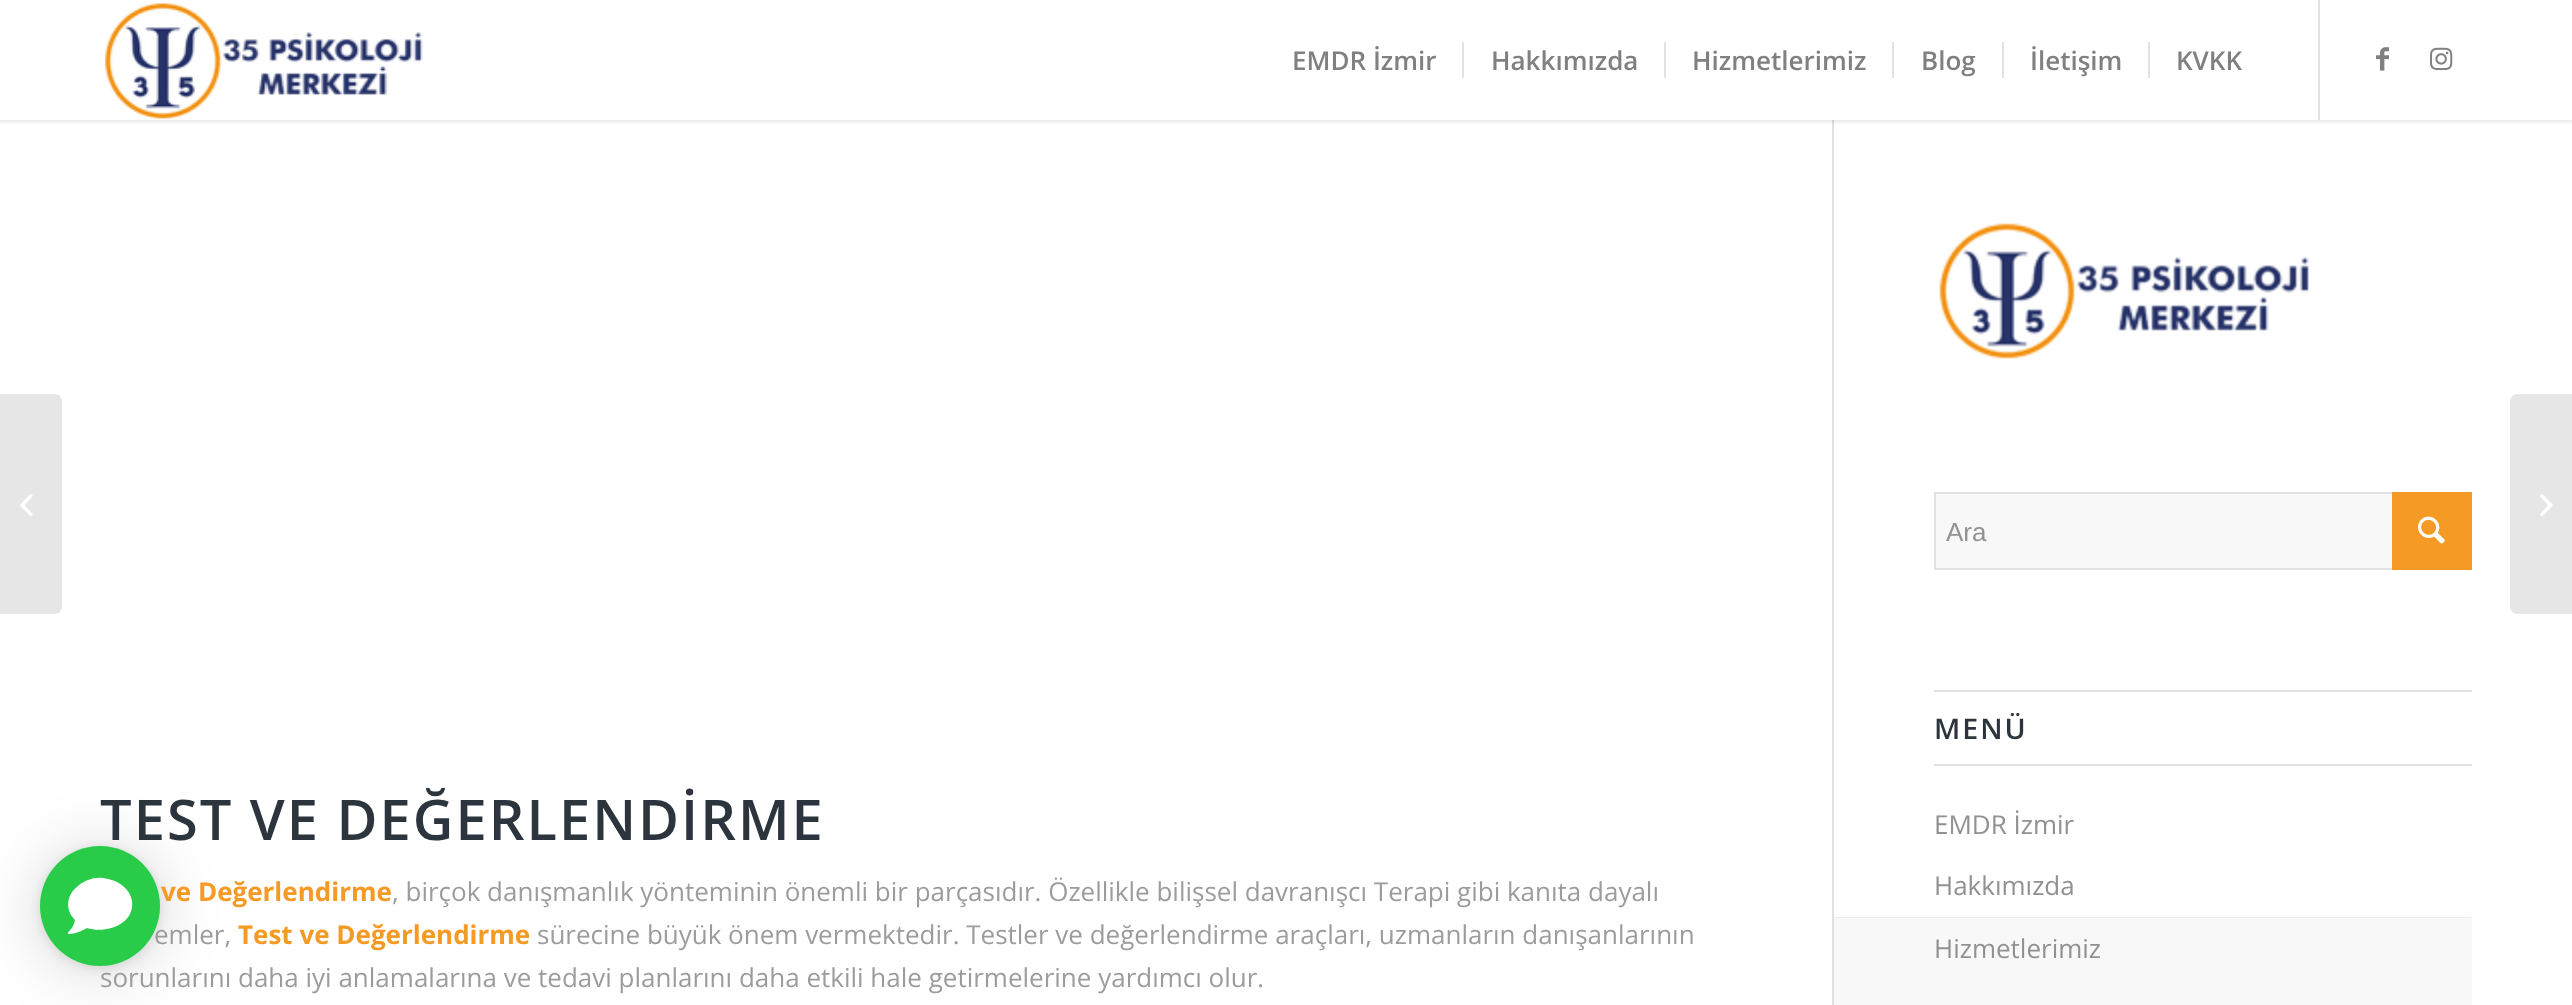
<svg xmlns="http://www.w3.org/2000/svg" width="2572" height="1005">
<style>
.a{font:600 26px Open Sans;fill:#808080}
.b{font:600 56px Open Sans;letter-spacing:2px;fill:#2c353d}
.c{font:bold 26px Open Sans;fill:#f49a25}
.d{font:26px Open Sans;fill:#9c9c9c}
.e{font:26px Liberation Sans;fill:#919191}
.f{font:600 28.5px Open Sans;letter-spacing:2px;fill:#2c353d}
.g{font:26px Open Sans;fill:#919191}
</style>
<defs>
<clipPath id="clip1"><path d="M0 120h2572v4H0z"/></clipPath>
<clipPath id="clip2"><path d="M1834 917h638v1H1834z"/></clipPath>
</defs>
<rect width="100%" height="100%" fill="#fff"/>
<path fill="#e1e1e1" d="M1832 120h2v885H1832z"/>
<g clip-path="url(#clip1)">
<path fill="#0000001a" filter="blur(2px)" d="M-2 -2h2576v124H-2z"/>
</g>
<image href="1.png" x="104" y="3" width="319" height="116"/>
<path fill="#e1e1e1" d="M2318 0h2v120H2318z"/>
<path fill="#e1e1e1" d="M1462 42h2v36H1462z"/>
<path fill="#e1e1e1" d="M1664 42h2v36H1664z"/>
<path fill="#e1e1e1" d="M1892 42h2v36H1892z"/>
<path fill="#e1e1e1" d="M2002 42h2v36H2002z"/>
<path fill="#e1e1e1" d="M2148 42h2v36H2148z"/>
<image href="2.png" x="2376" y="47" width="13" height="24"/>
<image href="3.png" x="2430" y="47" width="23" height="24"/>
<path fill="#e6e6e6" d="M0 394h54c4.5 0 8 3.5 8 8v204c0 4.5-3.5 8-8 8h-54z"/>
<image href="4.png" x="20" y="494" width="13" height="22"/>
<image href="5.png" x="1939" y="223" width="370" height="136"/>
<path fill="#f8f8f8" d="M1936 494h456v74H1936z"/>
<path fill="none" stroke="#e1e1e1" stroke-width="2" d="M1935 493h536v76H1935z"/>
<path fill="#f49a25" d="M2392 492h80v78H2392z"/>
<image href="6.png" x="2418" y="516" width="27" height="28"/>
<path fill="#e1e1e1" d="M1934 690h538v2H1934z"/>
<path fill="#e1e1e1" d="M1934 764h538v2H1934z"/>
<g clip-path="url(#clip2)">
<path fill="#00000033" filter="blur(1px)" d="M1832 918h640v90H1832z"/>
</g>
<path fill="#f8f8f8" d="M1834 918h638v87H1834z"/>
<path fill="#e6e6e6" d="M2518 394h54v220h-54c-4.5 0-8-3.5-8-8v-204c0-4.5 3.5-8 8-8z"/>
<image href="7.png" x="2540" y="494" width="13" height="23"/>
<rect fill="#00000029" filter="blur(32px)" x="40" y="850" width="120" height="120" rx="60"/>
<rect fill="#0000001a" filter="blur(6px)" x="40" y="848" width="120" height="120" rx="60"/>
<text class="a" x="1292" y="70">EMDR İzmir</text>
<text class="a" x="1491" y="70">Hakkımızda</text>
<text class="a" x="1692" y="70">Hizmetlerimiz</text>
<text class="a" x="1921" y="70">Blog</text>
<text class="a" x="2030" y="70">İletişim</text>
<text class="a" x="2176" y="70">KVKK</text>
<text class="b" x="100" y="840">TEST VE DEĞERLENDİRME</text>
<text class="c" x="161" y="901">ve Değerlendirme</text>
<text class="d" x="392" y="901">, birçok danışmanlık yönteminin önemli bir parçasıdır. Özellikle bilişsel davranışcı Terapi gibi kanıta dayalı</text>
<text class="d" x="154" y="944">emler,</text>
<text class="c" x="238" y="944">Test ve Değerlendirme</text>
<text class="d" x="537" y="944">sürecine büyük önem vermektedir. Testler ve değerlendirme araçları, uzmanların danışanlarının</text>
<text class="d" x="100" y="987">sorunlarını daha iyi anlamalarına ve tedavi planlarını daha etkili hale getirmelerine yardımcı olur.</text>
<text class="e" x="1946" y="541">Ara</text>
<text class="f" x="1934" y="739">MENÜ</text>
<text class="g" x="1934" y="834">EMDR İzmir</text>
<text class="g" x="1934" y="895">Hakkımızda</text>
<text class="g" x="1934" y="958">Hizmetlerimiz</text>
<circle fill="#28cc49" cx="100" cy="906" r="60"/>
<path fill="#fff" d="M78 886c7-6 16-9 25-8c7 1 14 3 20 8c5 4 8 9 9 15c3 24-27 33-45 27c-5 3-10 5-16 6c-6 0-2-2 0-5c2-2 3-5 4-9c-10-10-9-25 3-34z"/>
</svg>
